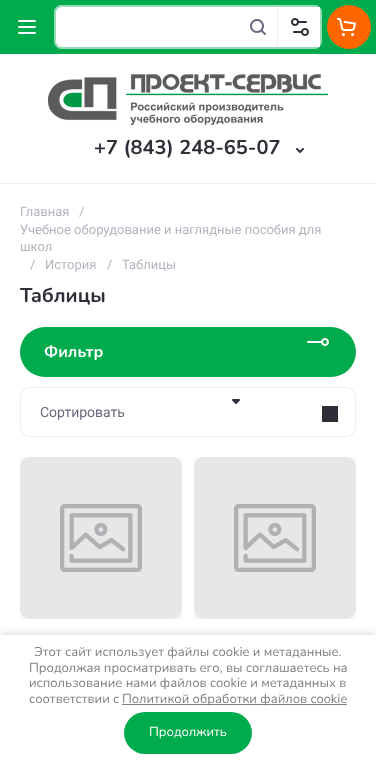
<svg xmlns="http://www.w3.org/2000/svg" width="376" height="764">
<style>
.a{font:bold 20px Nunito;fill:#2e2f38}
.b{font:13px Roboto;fill:#b3b4bf}
.c{font:bold 16px Nunito;fill:#fff}
.d{font:14px Roboto;fill:#67697e}
.e{font:13px Nunito;fill:#808080}
.f{font:13px Nunito;fill:#fff}
</style>
<rect width="100%" height="100%" fill="#fff"/>
<path fill="#00ab4e" d="M0 0h376v54H0z"/>
<image href="1.png" x="18" y="20" width="18" height="14"/>
<rect fill="#fff" x="54" y="5" width="268" height="44" rx="8"/>
<rect fill="none" stroke="#00ab4e66" stroke-width="2" x="55" y="6" width="266" height="42" rx="7"/>
<image href="2.png" x="250" y="19" width="16" height="16"/>
<path fill="#d2d3e066" d="M277 5h1v44H277z"/>
<path fill="#fff" d="M314 7h6v40H314z"/>
<image href="3.png" x="291" y="18" width="18" height="18"/>
<circle fill="#f60" cx="349" cy="27" r="22"/>
<image href="4.png" x="337" y="18" width="19" height="18"/>
<path fill="#ededf3" d="M0 183h376v1H0z"/>
<image href="5.png" x="48" y="74" width="280" height="51"/>
<image href="6.png" x="296" y="148" width="8" height="5"/>
<rect fill="#00ab4e" x="20" y="327" width="336" height="50" rx="25"/>
<image href="7.png" x="307" y="338" width="22" height="8"/>
<rect fill="none" stroke="#ededf3" x="20.5" y="387.5" width="335" height="49" rx="9.5"/>
<image href="8.png" x="232" y="399" width="8" height="5"/>
<path fill="#2e2f38" d="M322 406h16v16H322z"/>
<rect fill="#efefef" x="20" y="457" width="162" height="162" rx="10"/>
<image href="9.png" x="60" y="504" width="82" height="68"/>
<path fill="#00000008" d="M20 457h162v162H20z"/>
<rect fill="#efefef" x="194" y="457" width="162" height="162" rx="10"/>
<image href="9.png" x="234" y="504" width="82" height="68"/>
<path fill="#00000008" d="M194 457h162v162H194z"/>
<path fill="#0000003b" filter="blur(5px)" d="M0 636h376v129H0z"/>
<path fill="#fff" d="M0 635h376v129H0z"/>
<path fill="#808080" d="M122 704h225v1H122z"/>
<rect fill="#00ab4e" x="124" y="712" width="128" height="42" rx="21"/>
<text class="a" x="94" y="154">+7 (843) 248-65-07</text>
<text class="b" x="20" y="216">Главная</text>
<text class="b" x="79" y="216">/</text>
<text class="b" x="20" y="234">Учебное оборудование и наглядные пособия для</text>
<text class="b" x="20" y="251">школ</text>
<text class="b" x="30" y="269">/</text>
<text class="b" x="45" y="269">История</text>
<text class="b" x="107" y="269">/</text>
<text class="b" x="122" y="269">Таблицы</text>
<text class="a" x="20" y="302">Таблицы</text>
<text class="c" x="44" y="357">Фильтр</text>
<text class="d" x="40" y="417">Сортировать</text>
<text class="e" x="34" y="656">Этот сайт использует файлы cookie и метаданные.</text>
<text class="e" x="29" y="672">Продолжая просматривать его, вы соглашаетесь на</text>
<text class="e" x="29" y="687">использование нами файлов cookie и метаданных в</text>
<text class="e" x="29" y="703">соответствии с</text>
<text class="e" x="122" y="703">Политикой обработки файлов cookie</text>
<text class="f" x="149" y="736">Продолжить</text>
</svg>
